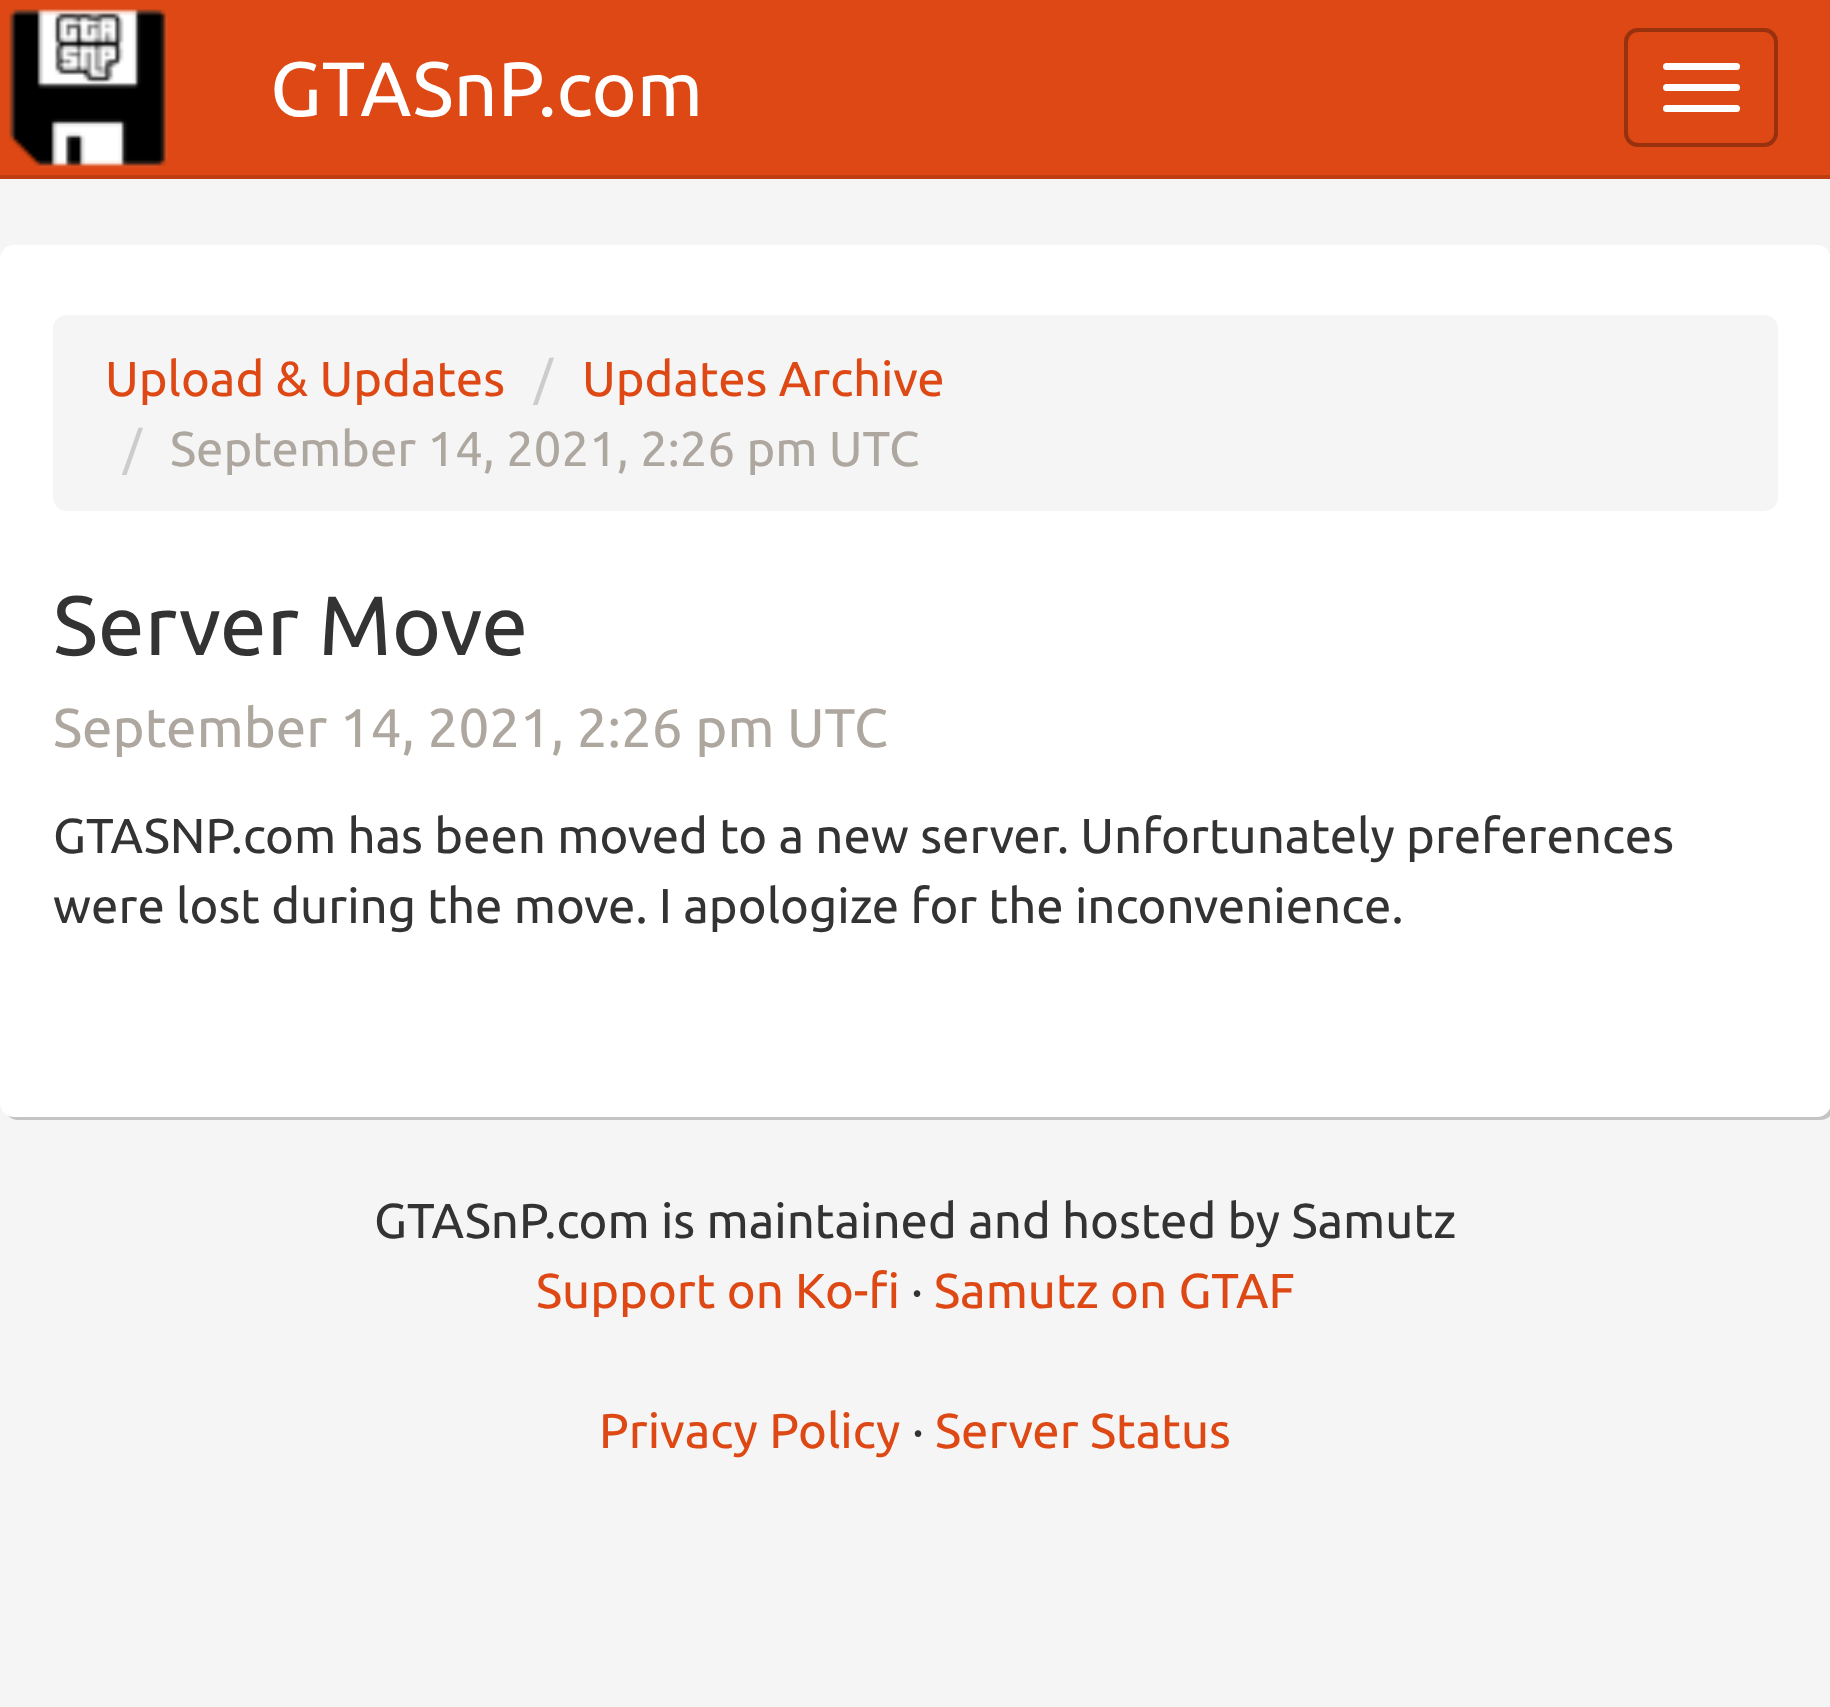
<svg xmlns="http://www.w3.org/2000/svg" width="1830" height="1707">
<style>
.a{font:77px Ubuntu;fill:#fff}
.b{font:49px Ubuntu;fill:#dd4814}
.c{font:49px Ubuntu;fill:#ccc}
.d{font:49px Ubuntu;fill:#aea79f}
.e{font:84px Ubuntu;fill:#333}
.f{font:54.6px Ubuntu;fill:#aea79f}
.g{font:49px Ubuntu;fill:#333}
</style>
<rect width="100%" height="100%" fill="#f5f5f5"/>
<path fill="#dd4814" d="M0 0h1830v175H0z"/>
<path fill="#bf3e11" d="M0 175h1830v4H0z"/>
<image href="1.png" x="9" y="9" width="159" height="159"/>
<rect fill="none" stroke="#97310e" stroke-width="4" x="1626" y="30" width="150" height="115" rx="12"/>
<rect fill="#fff" x="1663" y="63" width="77" height="7" rx="3.5"/>
<rect fill="#fff" x="1663" y="84" width="77" height="7" rx="3.5"/>
<rect fill="#fff" x="1663" y="105" width="77" height="7" rx="3.5"/>
<path fill="#c4c4c4" d="M7 1115c3 3 7 5 11 5h1802c8 0 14-6 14-14v-843c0-4-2-8-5-11c1 2 1 4 1 7v843c0 8-6 14-14 14h-1802c-3 0-5 0-7-1z"/>
<rect fill="#fff" y="245" width="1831" height="872" rx="14"/>
<rect fill="#f5f5f5" x="53" y="315" width="1725" height="196" rx="14"/>
<text class="a" x="270" y="116">GTASnP.com</text>
<text class="b" x="105" y="396">Upload &amp; Updates</text>
<text class="c" x="534" y="396">/</text>
<text class="b" x="582" y="396">Updates Archive</text>
<text class="c" x="123" y="466">/</text>
<text class="d" x="170" y="466">September 14, 2021, 2:26 pm UTC</text>
<text class="e" x="53" y="655">Server Move</text>
<text class="f" x="53" y="747">September 14, 2021, 2:26 pm UTC</text>
<text class="g" x="53" y="853">GTASNP.com has been moved to a new server. Unfortunately preferences</text>
<text class="g" x="53" y="923">were lost during the move. I apologize for the inconvenience.</text>
<text class="g" x="374" y="1238">GTASnP.com is maintained and hosted by Samutz</text>
<text class="b" x="536" y="1308">Support on Ko-fi</text>
<text class="g" x="911" y="1308">·</text>
<text class="b" x="934" y="1308">Samutz on GTAF</text>
<text class="b" x="599" y="1448">Privacy Policy</text>
<text class="g" x="912" y="1448">·</text>
<text class="b" x="935" y="1448">Server Status</text>
</svg>
